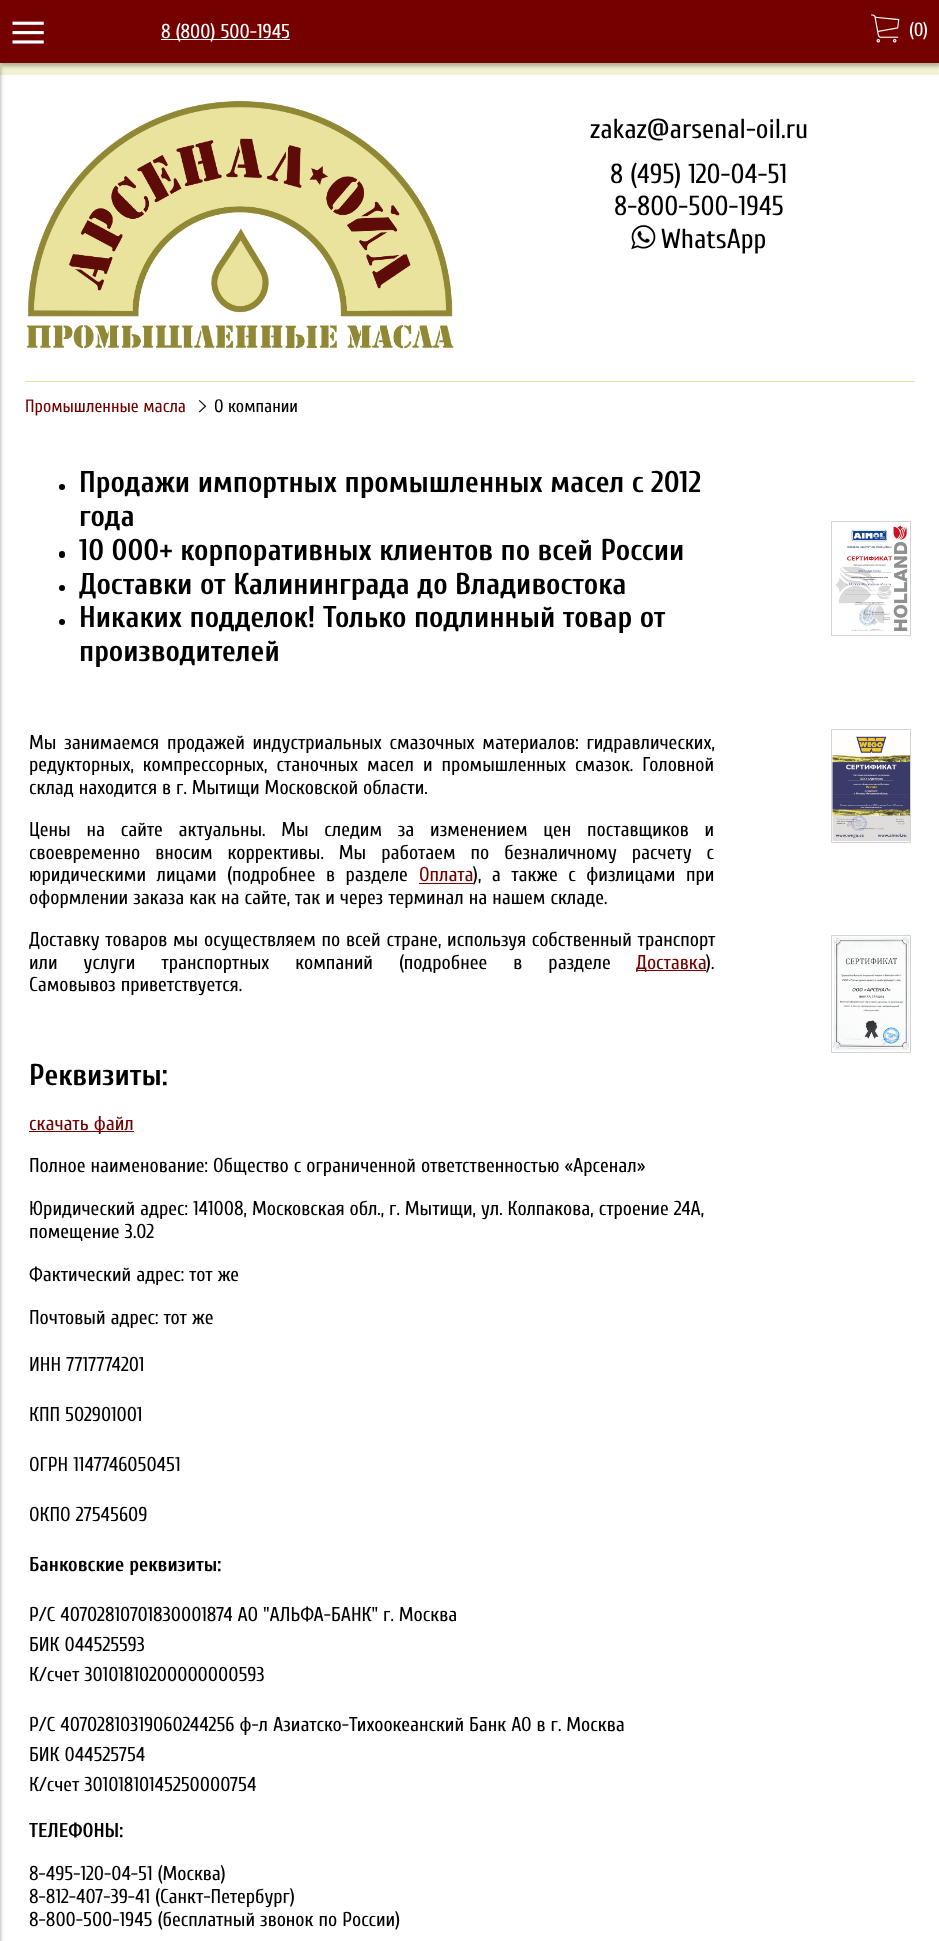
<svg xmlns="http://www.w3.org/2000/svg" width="939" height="1941">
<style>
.a{font:20px Cuprum;fill:#fff}
.b{font:19px Cuprum;fill:#fff}
.c{font:27.5px Cuprum;fill:#000}
.d{font:18px Cuprum;fill:#750000}
.e{font:18px Cuprum;fill:#000}
.f{font:bold 30px Cuprum;fill:#000}
.g{font:20px Cuprum;fill:#000}
.h{font:20px Cuprum;fill:#750000}
.i{font:bold 20px Cuprum;fill:#000}
</style>
<rect width="100%" height="100%" fill="#f2f2d5"/>
<path fill="#0000004d" filter="blur(2px)" d="M0 4h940v62H0z"/>
<path fill="#750000" d="M0 0h939v63H0z"/>
<image href="1.png" x="12" y="21" width="32" height="23"/>
<path fill="#fff" d="M161 39h129v1H161z"/>
<image href="2.png" x="871" y="14" width="29" height="29"/>
<path fill="#fff" d="M0 75h939v1866H0z"/>
<path fill="#00000066" filter="blur(2px)" d="M-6 66h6v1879H-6z"/>
<image href="3.png" x="26" y="100" width="428" height="249"/>
<image href="4.png" x="631" y="225" width="25" height="25"/>
<path fill="#e5e4ab" d="M25 381h890v1H25z"/>
<image href="5.png" x="198" y="400" width="9" height="13"/>
<circle fill="#000" cx="62" cy="487" r="3"/>
<rect fill="#000" x="59" y="551" width="6" height="7" rx="3"/>
<circle fill="#000" cx="62" cy="588" r="3"/>
<circle fill="#000" cx="62" cy="622" r="3"/>
<path fill="#750000" d="M419 883h54v1H419z"/>
<path fill="#750000" d="M636 970h70v1H636z"/>
<path fill="#750000" d="M29 1131h105v1H29z"/>
<path fill="none" stroke="#d3d3d3" d="M831.5 521.5h79v114H831.5z"/>
<image href="6.png" x="835" y="525" width="73" height="106"/>
<path fill="none" stroke="#d3d3d3" d="M831.5 729.5h79v113H831.5z"/>
<image href="7.png" x="832" y="736" width="78" height="106"/>
<path fill="none" stroke="#d3d3d3" d="M831.5 935.5h79v117H831.5z"/>
<image href="8.png" x="833" y="936" width="77" height="115"/>
<text class="a" x="161" y="38">8 (800) 500-1945</text>
<text class="b" x="909" y="36">(0)</text>
<text class="c" x="590" y="138">zakaz@arsenal-oil.ru</text>
<text class="c" x="610" y="183">8 (495) 120-04-51</text>
<text class="c" x="614" y="215">8-800-500-1945</text>
<text class="c" x="661" y="248">WhatsApp</text>
<text class="d" x="25" y="412">Промышленные масла</text>
<text class="e" x="214" y="412">О компании</text>
<text class="f" x="79" y="492">Продажи импортных промышленных масел с 2012</text>
<text class="f" x="79" y="526">года</text>
<text class="f" x="79" y="560">10 000+ корпоративных клиентов по всей России</text>
<text class="f" x="79" y="594">Доставки от Калининграда до Владивостока</text>
<text class="f" x="79" y="627">Никаких подделок! Только подлинный товар от</text>
<text class="f" x="79" y="661">производителей</text>
<text class="g" x="29" y="749" word-spacing="2.75">Мы занимаемся продажей индустриальных смазочных материалов: гидравлических,</text>
<text class="g" x="29" y="771" word-spacing="4">редукторных, компрессорных, станочных масел и промышленных смазок. Головной</text>
<text class="g" x="29" y="794">склад находится в г. Мытищи Московской области.</text>
<text class="g" x="29" y="836" word-spacing="10.75">Цены на сайте актуальны. Мы следим за изменением цен поставщиков и</text>
<text class="g" x="29" y="859" word-spacing="10">своевременно вносим коррективы. Мы работаем по безналичному расчету с</text>
<text class="g" x="29" y="881" word-spacing="5.5">юридическими лицами (подробнее в разделе</text>
<text class="h" x="419" y="881">Оплата</text>
<text class="g" x="473" y="881" word-spacing="5.5">), а также с физлицами при</text>
<text class="g" x="29" y="904">оформлении заказа как на сайте, так и через терминал на нашем складе.</text>
<text class="g" x="29" y="946" word-spacing="0.75">Доставку товаров мы осуществляем по всей стране, используя собственный транспорт</text>
<text class="g" x="29" y="969" word-spacing="21">или услуги транспортных компаний (подробнее в разделе</text>
<text class="h" x="636" y="969">Доставка</text>
<text class="g" x="706" y="969">).</text>
<text class="g" x="29" y="991">Самовывоз приветствуется.</text>
<text class="f" x="29" y="1085">Реквизиты:</text>
<text class="h" x="29" y="1130">скачать файл</text>
<text class="g" x="29" y="1172">Полное наименование: Общество с ограниченной ответственностью «Арсенал»</text>
<text class="g" x="29" y="1215">Юридический адрес: 141008, Московская обл., г. Мытищи, ул. Колпакова, строение 24А,</text>
<text class="g" x="29" y="1238">помещение 3.02</text>
<text class="g" x="29" y="1281">Фактический адрес: тот же</text>
<text class="g" x="29" y="1324">Почтовый адрес: тот же</text>
<text class="g" x="29" y="1371">ИНН 7717774201</text>
<text class="g" x="29" y="1421">КПП 502901001</text>
<text class="g" x="29" y="1471">ОГРН 1147746050451</text>
<text class="g" x="29" y="1521">ОКПО 27545609</text>
<text class="i" x="29" y="1571">Банковские реквизиты:</text>
<text class="g" x="29" y="1621">Р/С 40702810701830001874 АО "АЛЬФА-БАНК" г. Москва</text>
<text class="g" x="29" y="1651">БИК 044525593</text>
<text class="g" x="29" y="1681">К/счет 30101810200000000593</text>
<text class="g" x="29" y="1731">Р/С 40702810319060244256 ф-л Азиатско-Тихоокеанский Банк АО в г. Москва</text>
<text class="g" x="29" y="1761">БИК 044525754</text>
<text class="g" x="29" y="1791">К/счет 30101810145250000754</text>
<text class="i" x="29" y="1837">ТЕЛЕФОНЫ:</text>
<text class="g" x="29" y="1880">8-495-120-04-51 (Москва)</text>
<text class="g" x="29" y="1903">8-812-407-39-41 (Санкт-Петербург)</text>
<text class="g" x="29" y="1926">8-800-500-1945 (бесплатный звонок по России)</text>
</svg>
